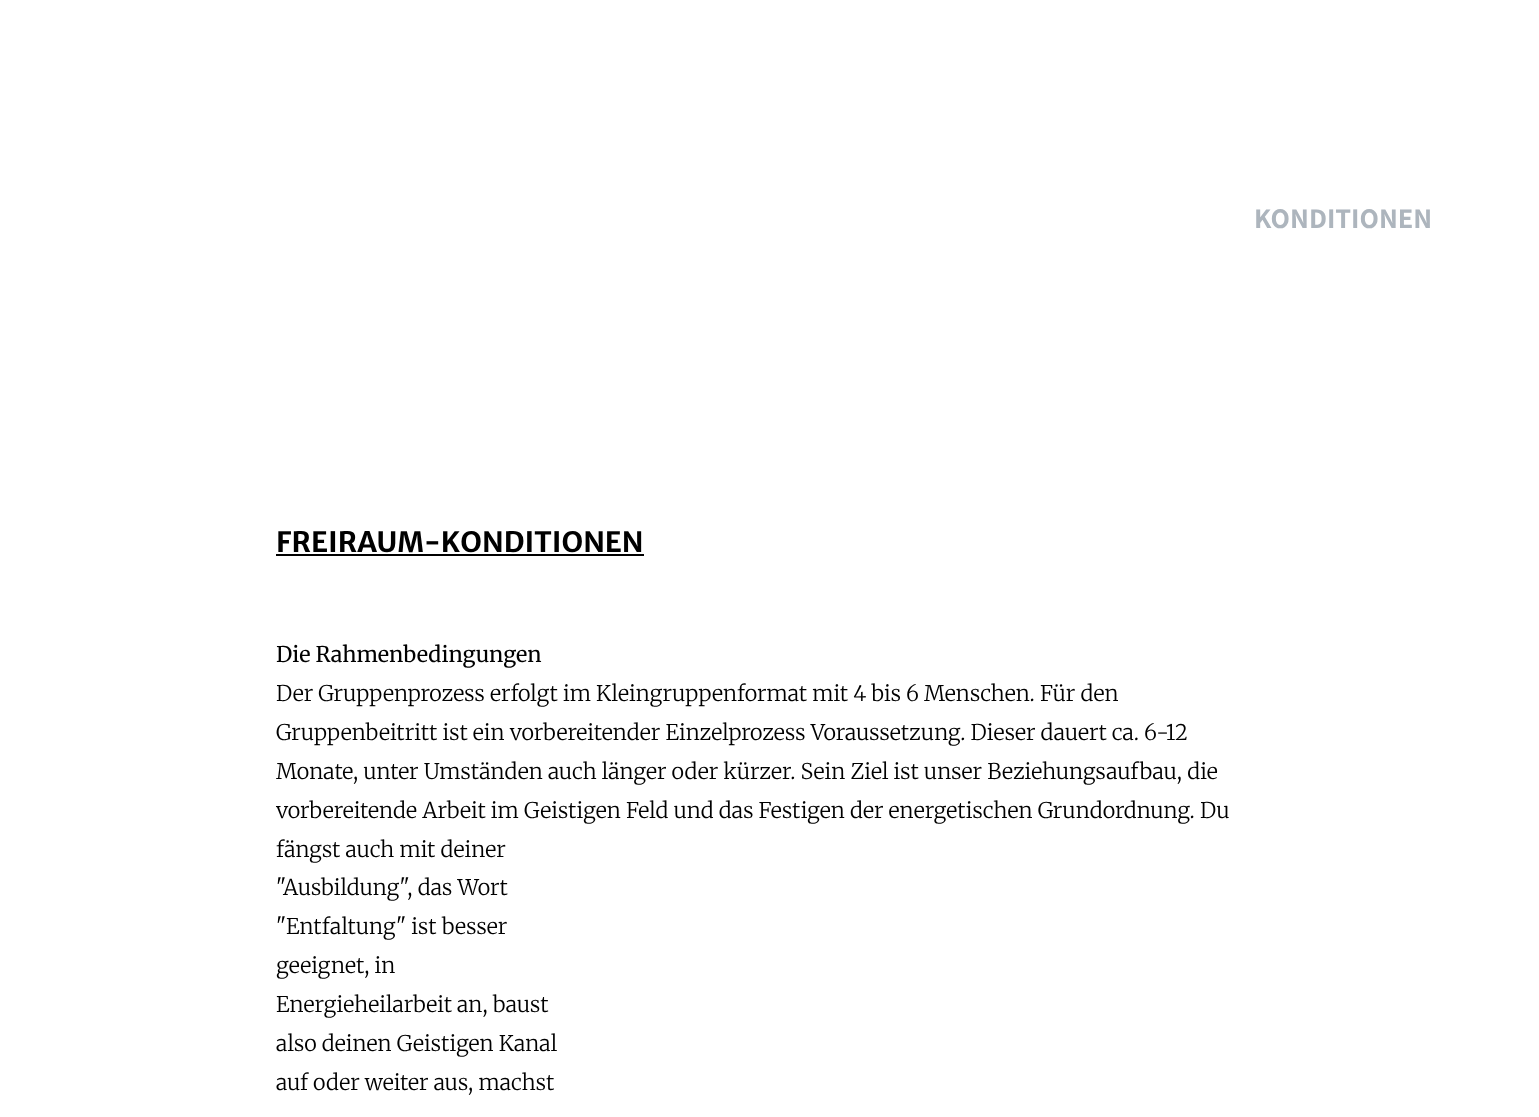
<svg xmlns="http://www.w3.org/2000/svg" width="1539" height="1117">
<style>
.a{font:bold 28.5px Assistant;fill:#adb5bd}
.b{font:bold 28.1px Merriweather Sans;fill:#000}
.c{font:21.6px Merriweather;fill:#000}
.d{font:300 21.6px Merriweather;fill:#000}
</style>
<rect width="100%" height="100%" fill="#fff"/>
<path fill="#000" d="M276 554h368v2H276z"/>
<text class="a" x="1254" y="228">KONDITIONEN</text>
<text class="b" x="276" y="552">FREIRAUM-KONDITIONEN</text>
<text class="c" x="276" y="662">Die Rahmenbedingungen</text>
<text class="d" x="276" y="701">Der Gruppenprozess erfolgt im Kleingruppenformat mit 4 bis 6 Menschen. Für den</text>
<text class="d" x="276" y="740">Gruppenbeitritt ist ein vorbereitender Einzelprozess Voraussetzung. Dieser dauert ca. 6-12</text>
<text class="d" x="276" y="779">Monate, unter Umständen auch länger oder kürzer. Sein Ziel ist unser Beziehungsaufbau, die</text>
<text class="d" x="276" y="818">vorbereitende Arbeit im Geistigen Feld und das Festigen der energetischen Grundordnung. Du</text>
<text class="d" x="276" y="857">fängst auch mit deiner</text>
<text class="d" x="276" y="895">"Ausbildung", das Wort</text>
<text class="d" x="276" y="934">"Entfaltung" ist besser</text>
<text class="d" x="276" y="973">geeignet, in</text>
<text class="d" x="276" y="1012">Energieheilarbeit an, baust</text>
<text class="d" x="276" y="1051">also deinen Geistigen Kanal</text>
<text class="d" x="276" y="1090">auf oder weiter aus, machst</text>
</svg>
